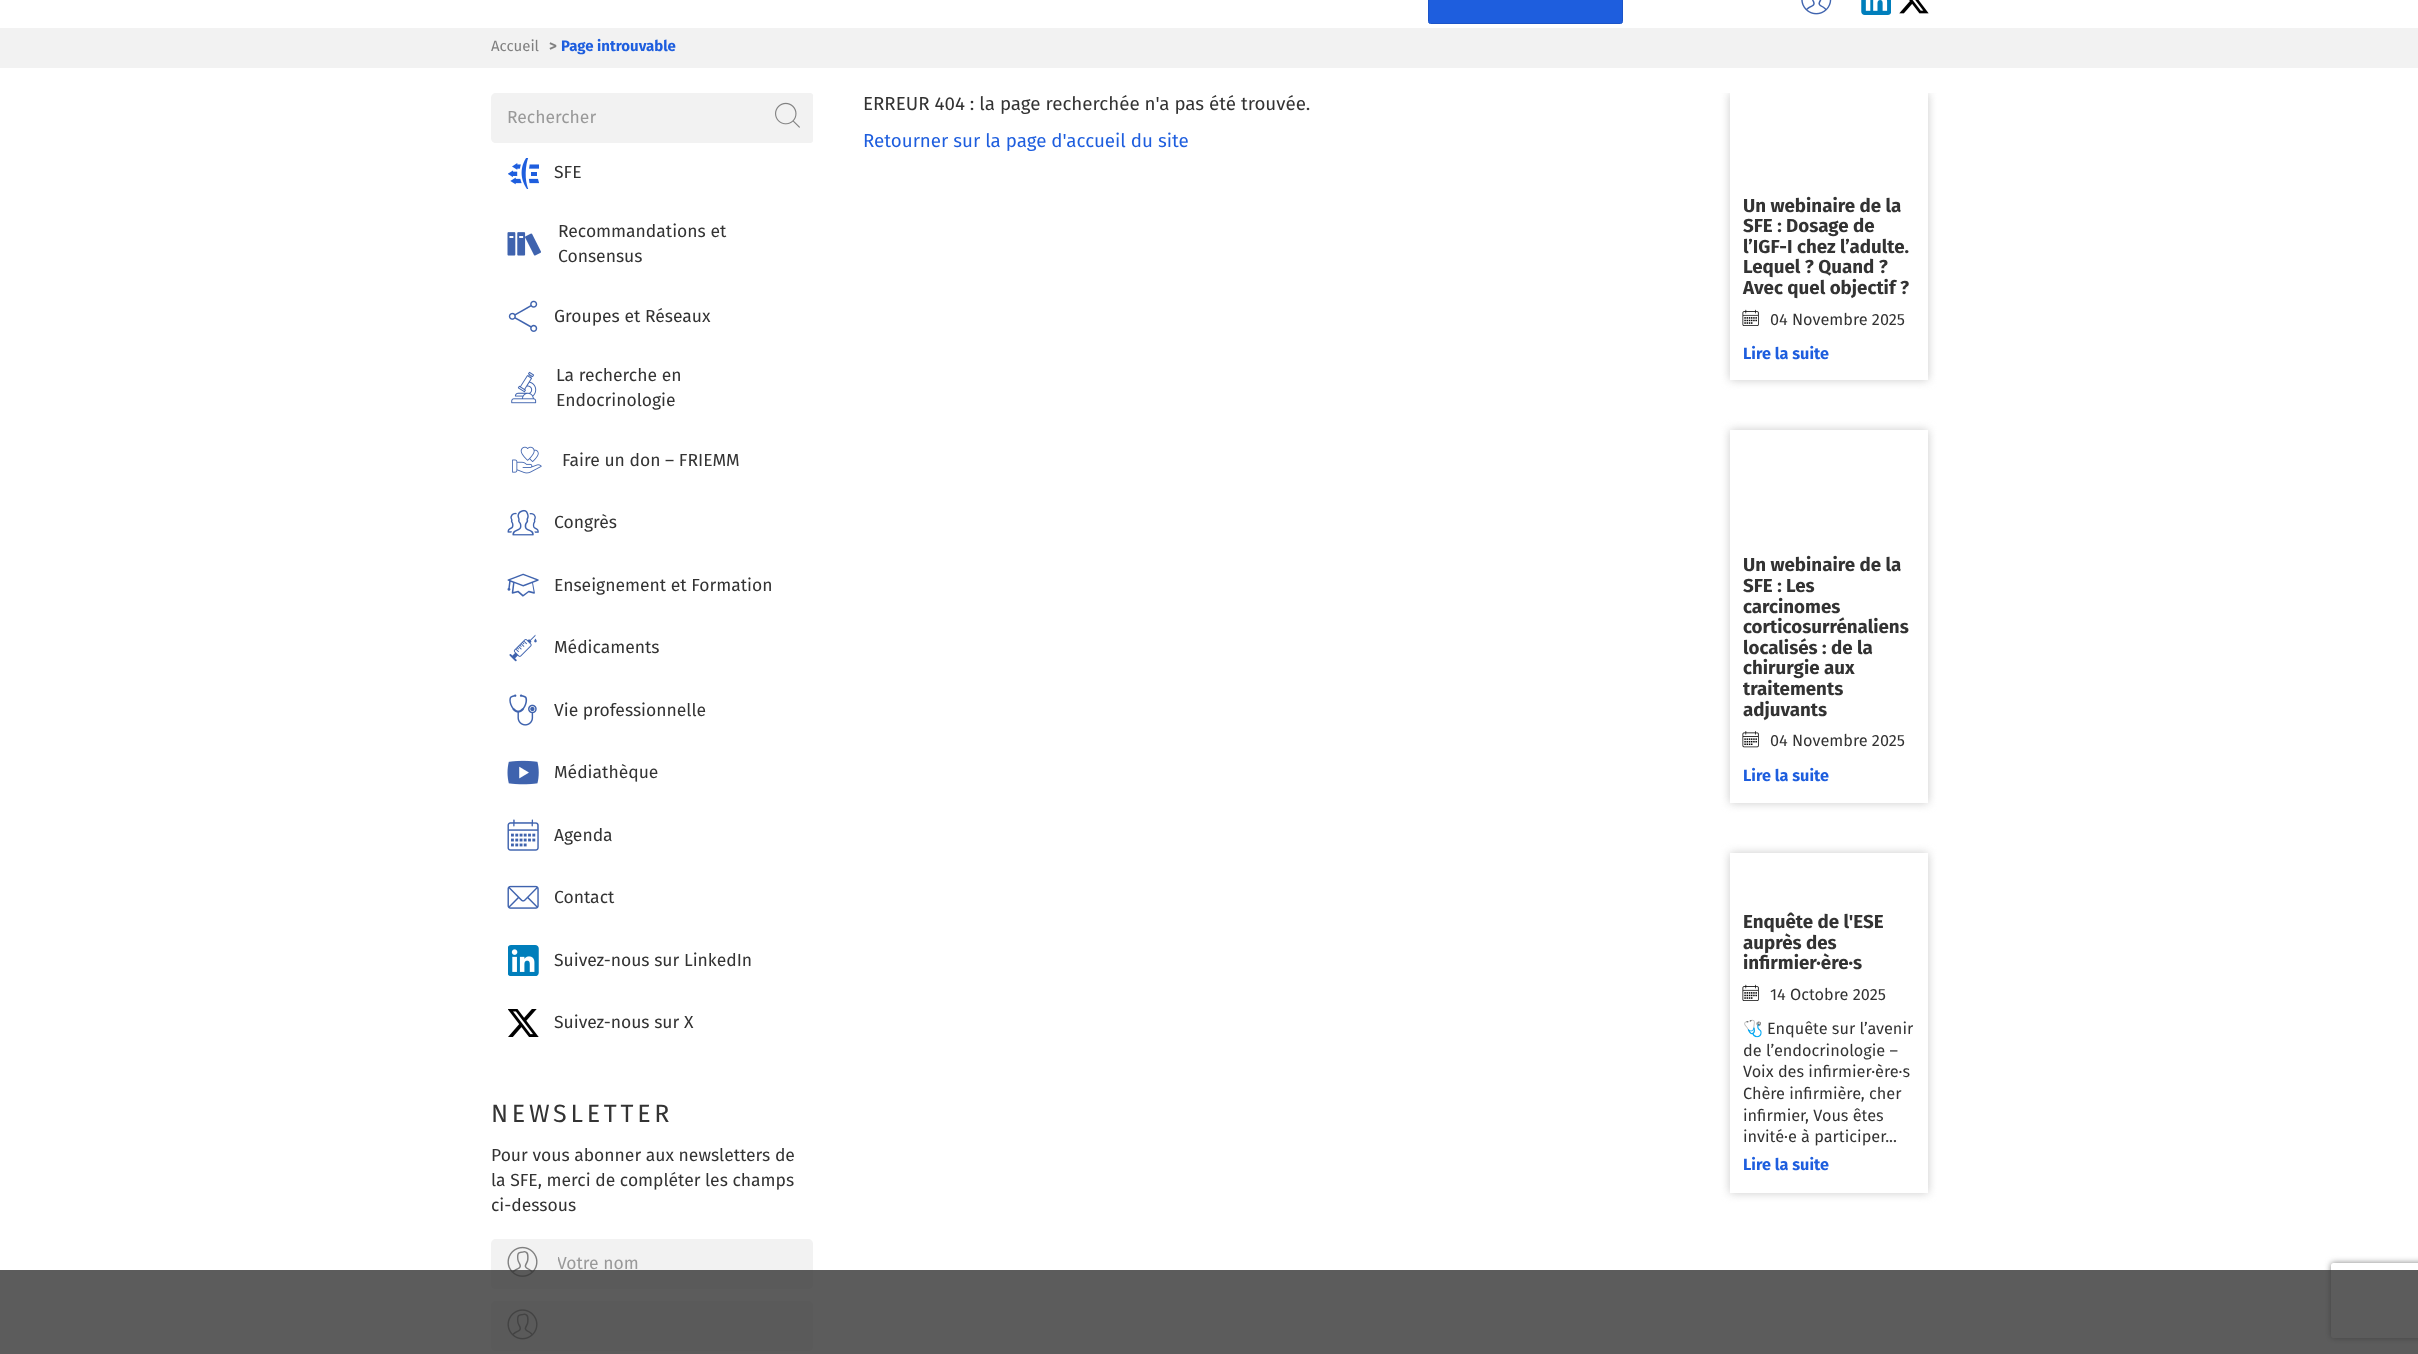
<svg xmlns="http://www.w3.org/2000/svg" width="2418" height="1354">
<style>
.a{font:15px Fira Sans;fill:#808080}
.b{font:bold 15px Fira Sans;fill:#808080}
.c{font:bold 15px Fira Sans;fill:#1e5ede}
.d{font:17.5px Fira Sans;fill:#999}
.e{font:17.5px Fira Sans;fill:#333}
.f{font:25px Fira Sans;letter-spacing:3.75px;fill:#333}
.g{font:18.75px Fira Sans;fill:#333}
.h{font:18.75px Fira Sans;fill:#1e5ede}
.i{font:bold 18.75px Fira Sans;fill:#333}
.j{font:16.25px Fira Sans;fill:#333}
.k{font:bold 16.25px Fira Sans;fill:#1e5ede}
.l{font:16.25px Noto Color Emoji;fill:#333}
</style>
<defs>
<clipPath id="clip1"><path d="M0 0h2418v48h-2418zm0-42h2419v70h-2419z" clip-rule="evenodd"/></clipPath>
<clipPath id="clip2"><path d="M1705 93h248v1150H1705z"/></clipPath>
<clipPath id="clip3"><path d="M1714 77h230v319h-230zm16 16h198v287h-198z" clip-rule="evenodd"/></clipPath>
<clipPath id="clip4"><path d="M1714 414h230v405h-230zm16 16h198v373h-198z" clip-rule="evenodd"/></clipPath>
<clipPath id="clip5"><path d="M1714 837h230v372h-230zm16 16h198v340h-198z" clip-rule="evenodd"/></clipPath>
<clipPath id="clip6"><path d="M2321 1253h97v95h-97zm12.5 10h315c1.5 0 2.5 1 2.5 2.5v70c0 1.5-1 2.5-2.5 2.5h-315c-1.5 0-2.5-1-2.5-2.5v-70c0-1.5 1-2.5 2.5-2.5z" clip-rule="evenodd"/></clipPath>
<clipPath id="clip7"><path d="M558 1253h238v21H558z"/></clipPath>
</defs>
<rect width="100%" height="100%" fill="#fff"/>
<g clip-path="url(#clip1)">
<path fill="#cacaca99" filter="blur(4px)" d="M0 -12h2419v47H0z"/>
</g>
<rect fill="#1e5ede" stroke="#1b54c8" x="1428.5" y="-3.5" width="194" height="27" rx="2"/>
<image href="1.png" x="1801" y="0" width="31" height="15"/>
<image href="2.png" x="1861" y="0" width="30" height="15"/>
<image href="3.png" x="1899" y="0" width="30" height="14"/>
<path fill="#f2f2f2" d="M0 28h2418v40H0z"/>
<path fill="#f2f2f2" d="M496 93h268v50h-268c-3 0-5-2-5-5v-40c0-3 2-5 5-5z"/>
<path fill="#f2f2f2" d="M763 93h47.5c1.5 0 2.5 1 2.5 2.5v45c0 1.5-1 2.5-2.5 2.5h-47.5z"/>
<image href="4.png" x="775" y="102" width="25" height="26"/>
<image href="5.png" x="508" y="158" width="31" height="31"/>
<image href="6.png" x="507" y="232" width="34" height="24"/>
<image href="7.png" x="508" y="300" width="30" height="32"/>
<image href="8.png" x="511" y="371" width="26" height="33"/>
<image href="9.png" x="512" y="446" width="30" height="28"/>
<image href="10.png" x="507" y="509" width="32" height="27"/>
<image href="11.png" x="507" y="573" width="32" height="24"/>
<image href="12.png" x="509" y="634" width="28" height="28"/>
<image href="13.png" x="509" y="694" width="28" height="32"/>
<image href="14.png" x="507" y="760" width="32" height="25"/>
<image href="15.png" x="507" y="819" width="32" height="32"/>
<image href="16.png" x="507" y="885" width="32" height="24"/>
<image href="17.png" x="508" y="945" width="31" height="31"/>
<image href="18.png" x="508" y="1009" width="31" height="28"/>
<path fill="#f2f2f2" d="M496 1239h57v50h-57c-3 0-5-2-5-5v-40c0-3 2-5 5-5z"/>
<image href="19.png" x="507" y="1246" width="31" height="31"/>
<path fill="#f2f2f2" d="M553 1239h255c3 0 5 2 5 5v40c0 3-2 5-5 5h-255z"/>
<path fill="#f2f2f2" d="M496 1301h57v50h-57c-3 0-5-2-5-5v-40c0-3 2-5 5-5z"/>
<image href="20.png" x="507" y="1309" width="31" height="31"/>
<path fill="#f2f2f2" d="M553 1301h255c3 0 5 2 5 5v40c0 3-2 5-5 5h-255z"/>
<g clip-path="url(#clip2)">
<g clip-path="url(#clip3)">
<path fill="#cacaca" filter="blur(5px)" d="M1730 93h198v287H1730z"/>
</g>
</g>
<image href="21.png" x="1742" y="309" width="17" height="17"/>
<g clip-path="url(#clip4)">
<path fill="#cacaca" filter="blur(5px)" d="M1730 430h198v373H1730z"/>
</g>
<image href="22.png" x="1742" y="731" width="17" height="17"/>
<g clip-path="url(#clip5)">
<path fill="#cacaca" filter="blur(5px)" d="M1730 853h198v340H1730z"/>
</g>
<image href="21.png" x="1742" y="984" width="17" height="17"/>
<g clip-path="url(#clip6)">
<rect fill="#808080" filter="blur(3px)" x="2331" y="1263" width="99" height="75" rx="2.5"/>
</g>
<path fill="#333333cc" d="M0 1270h2418v84H0z"/>
<text class="a" x="491" y="51">Accueil</text>
<text class="b" x="549" y="51">&gt;</text>
<text class="c" x="561" y="51">Page introuvable</text>
<text class="d" x="507" y="123">Rechercher</text>
<text class="e" x="554" y="178">SFE</text>
<text class="e" x="558" y="237">Recommandations et</text>
<text class="e" x="558" y="262">Consensus</text>
<text class="e" x="554" y="322">Groupes et Réseaux</text>
<text class="e" x="556" y="381">La recherche en</text>
<text class="e" x="556" y="406">Endocrinologie</text>
<text class="e" x="562" y="466">Faire un don – FRIEMM</text>
<text class="e" x="554" y="528">Congrès</text>
<text class="e" x="554" y="591">Enseignement et Formation</text>
<text class="e" x="554" y="653">Médicaments</text>
<text class="e" x="554" y="716">Vie professionnelle</text>
<text class="e" x="554" y="778">Médiathèque</text>
<text class="e" x="554" y="841">Agenda</text>
<text class="e" x="554" y="903">Contact</text>
<text class="e" x="554" y="966">Suivez-nous sur LinkedIn</text>
<text class="e" x="554" y="1028">Suivez-nous sur X</text>
<text class="f" x="491" y="1122">NEWSLETTER</text>
<text class="e" x="491" y="1161">Pour vous abonner aux newsletters de</text>
<text class="e" x="491" y="1186">la SFE, merci de compléter les champs</text>
<text class="e" x="491" y="1211">ci-dessous</text>
<g clip-path="url(#clip7)">
<text class="d" x="557" y="1269">Votre nom</text>
</g>
<text class="g" x="863" y="110">ERREUR 404 : la page recherchée n'a pas été trouvée.</text>
<text class="h" x="863" y="147">Retourner sur la page d'accueil du site</text>
<text class="i" x="1743" y="212">Un webinaire de la</text>
<text class="i" x="1743" y="232">SFE : Dosage de</text>
<text class="i" x="1743" y="253">l’IGF-I chez l’adulte.</text>
<text class="i" x="1743" y="273">Lequel ? Quand ?</text>
<text class="i" x="1743" y="294">Avec quel objectif ?</text>
<text class="j" x="1770" y="325">04 Novembre 2025</text>
<text class="k" x="1743" y="359">Lire la suite</text>
<text class="i" x="1743" y="571">Un webinaire de la</text>
<text class="i" x="1743" y="592">SFE : Les</text>
<text class="i" x="1743" y="613">carcinomes</text>
<text class="i" x="1743" y="633">corticosurrénaliens</text>
<text class="i" x="1743" y="654">localisés : de la</text>
<text class="i" x="1743" y="674">chirurgie aux</text>
<text class="i" x="1743" y="695">traitements</text>
<text class="i" x="1743" y="716">adjuvants</text>
<text class="j" x="1770" y="746">04 Novembre 2025</text>
<text class="k" x="1743" y="781">Lire la suite</text>
<text class="i" x="1743" y="928">Enquête de l'ESE</text>
<text class="i" x="1743" y="949">auprès des</text>
<text class="i" x="1743" y="969">infirmier·ère·s</text>
<text class="j" x="1770" y="1000">14 Octobre 2025</text>
<text class="l" x="1743" y="1034">🩺</text>
<text class="j" x="1767" y="1034">Enquête sur l’avenir</text>
<text class="j" x="1743" y="1056">de l’endocrinologie –</text>
<text class="j" x="1743" y="1077">Voix des infirmier·ère·s</text>
<text class="j" x="1743" y="1099">Chère infirmière, cher</text>
<text class="j" x="1743" y="1121">infirmier, Vous êtes</text>
<text class="j" x="1743" y="1142">invité·e à participer...</text>
<text class="k" x="1743" y="1170">Lire la suite</text>
</svg>
